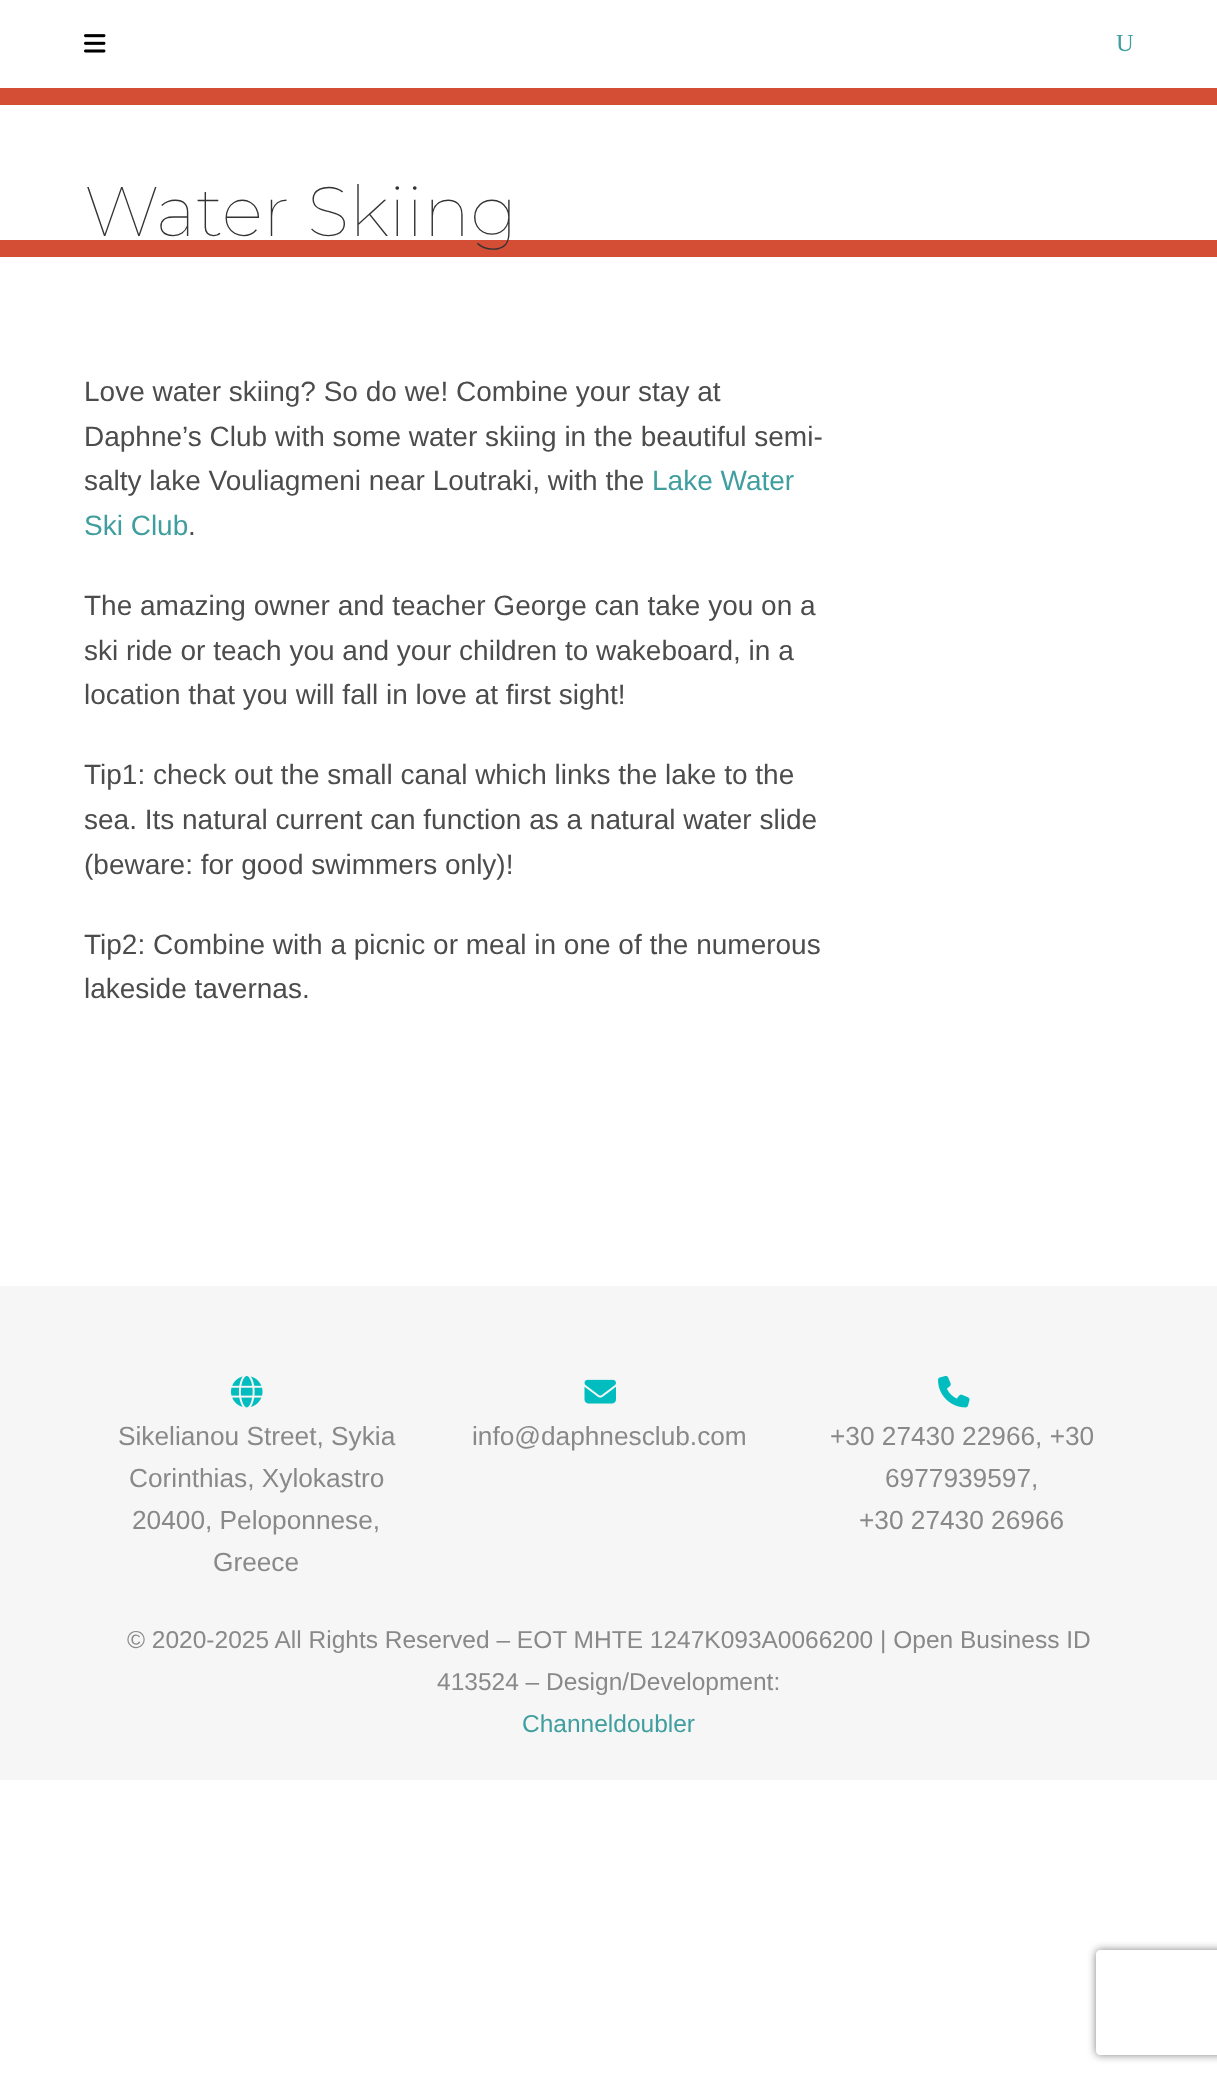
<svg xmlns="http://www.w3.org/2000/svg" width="1217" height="2078">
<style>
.a{font:24.5px Liberation Serif;fill:#409e9e}
.b{font:100 70px Montserrat;fill:#323333}
.c{font:28px Liberation Sans;fill:#4c4c4c}
.d{font:28px Liberation Sans;fill:#409e9e}
.e{font:26.25px Liberation Sans;fill:#898989}
.f{font:24.5px Liberation Sans;fill:#898989}
.g{font:24.5px Liberation Sans;fill:#409e9e}
</style>
<defs>
<clipPath id="clip1"><path d="M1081 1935h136v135h-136zm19 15h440c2 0 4 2 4 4v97c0 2-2 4-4 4h-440c-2 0-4-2-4-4v-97c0-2 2-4 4-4z" clip-rule="evenodd"/></clipPath>
</defs>
<rect width="100%" height="100%" fill="#fff"/>
<image href="1.png" x="84" y="34" width="22" height="19"/>
<path fill="#d34e35" d="M0 88h1217v169H0z"/>
<path fill="#fff" d="M0 105h1217v135H0z"/>
<path fill="#f6f6f6" d="M0 1286h1217v494H0z"/>
<image href="2.png" x="231" y="1376" width="32" height="32"/>
<image href="3.png" x="584" y="1379" width="32" height="25"/>
<image href="4.png" x="938" y="1376" width="32" height="32"/>
<g clip-path="url(#clip1)">
<rect fill="#808080" filter="blur(4.5px)" x="1096" y="1950" width="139" height="105" rx="4"/>
</g>
<text class="a" x="1116" y="51">U</text>
<text class="b" x="84" y="236">Water Skiing</text>
<text class="c" x="84" y="401">Love water skiing? So do we! Combine your stay at</text>
<text class="c" x="84" y="446">Daphne’s Club with some water skiing in the beautiful semi-</text>
<text class="c" x="84" y="490">salty lake Vouliagmeni near Loutraki, with the</text>
<text class="d" x="652" y="490">Lake Water</text>
<text class="d" x="84" y="535">Ski Club</text>
<text class="c" x="188" y="535">.</text>
<text class="c" x="84" y="615">The amazing owner and teacher George can take you on a</text>
<text class="c" x="84" y="660">ski ride or teach you and your children to wakeboard, in a</text>
<text class="c" x="84" y="704">location that you will fall in love at first sight!</text>
<text class="c" x="84" y="784">Tip1: check out the small canal which links the lake to the</text>
<text class="c" x="84" y="829">sea. Its natural current can function as a natural water slide</text>
<text class="c" x="84" y="874">(beware: for good swimmers only)!</text>
<text class="c" x="84" y="954">Tip2: Combine with a picnic or meal in one of the numerous</text>
<text class="c" x="84" y="998">lakeside tavernas.</text>
<text class="e" x="118" y="1445">Sikelianou Street, Sykia</text>
<text class="e" x="129" y="1487">Corinthias, Xylokastro</text>
<text class="e" x="132" y="1529">20400, Peloponnese,</text>
<text class="e" x="213" y="1571">Greece</text>
<text class="e" x="472" y="1445">info@daphnesclub.com</text>
<text class="e" x="830" y="1445">+30 27430 22966, +30</text>
<text class="e" x="885" y="1487">6977939597,</text>
<text class="e" x="859" y="1529">+30 27430 26966</text>
<text class="f" x="127" y="1648">© 2020-2025 All Rights Reserved – EOT MHTE 1247Κ093Α0066200 | Open Business ID</text>
<text class="f" x="437" y="1690">413524 – Design/Development:</text>
<text class="g" x="522" y="1732">Channeldoubler</text>
</svg>
